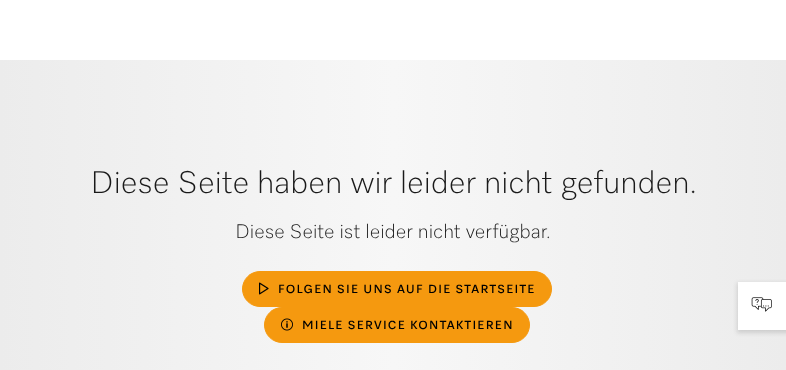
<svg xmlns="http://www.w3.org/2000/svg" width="786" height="370">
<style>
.a{font:300 32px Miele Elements;fill:#191919}
.b{font:300 20px Miele Elements;fill:#191919}
.c{font:600 12px Miele Elements;letter-spacing:1px;fill:#000}
</style>
<defs>
<linearGradient id="g1" gradientUnits="userSpaceOnUse" x1="0" y1="260" x2="786" y2="260"><stop offset="0" stop-color="#ececec"/><stop offset="0.5" stop-color="#f7f7f7"/><stop offset="1" stop-color="#ececec"/></linearGradient>
</defs>
<rect width="100%" height="100%" fill="#fff"/>
<path fill="url(#g1)" d="M0 60h786v310H0z"/>
<rect fill="#f5990f" stroke="#f5990f" x="242.5" y="271.5" width="309" height="35" rx="17.5"/>
<image href="1.png" x="259" y="282" width="10" height="13"/>
<rect fill="#f5990f" stroke="#f5990f" x="264.5" y="307.5" width="265" height="35" rx="17.5"/>
<image href="2.png" x="281" y="318" width="12" height="13"/>
<path fill="#19191926" filter="blur(2px)" d="M737 283h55v50H737z"/>
<path fill="#fff" d="M738 282h48v48H738z"/>
<image href="3.png" x="751" y="297" width="21" height="15"/>
<text class="a" x="90" y="193">Diese Seite haben wir leider nicht gefunden.</text>
<text class="b" x="235" y="238">Diese Seite ist leider nicht verfügbar.</text>
<text class="c" x="278" y="293">FOLGEN SIE UNS AUF DIE STARTSEITE</text>
<text class="c" x="302" y="329">MIELE SERVICE KONTAKTIEREN</text>
</svg>
